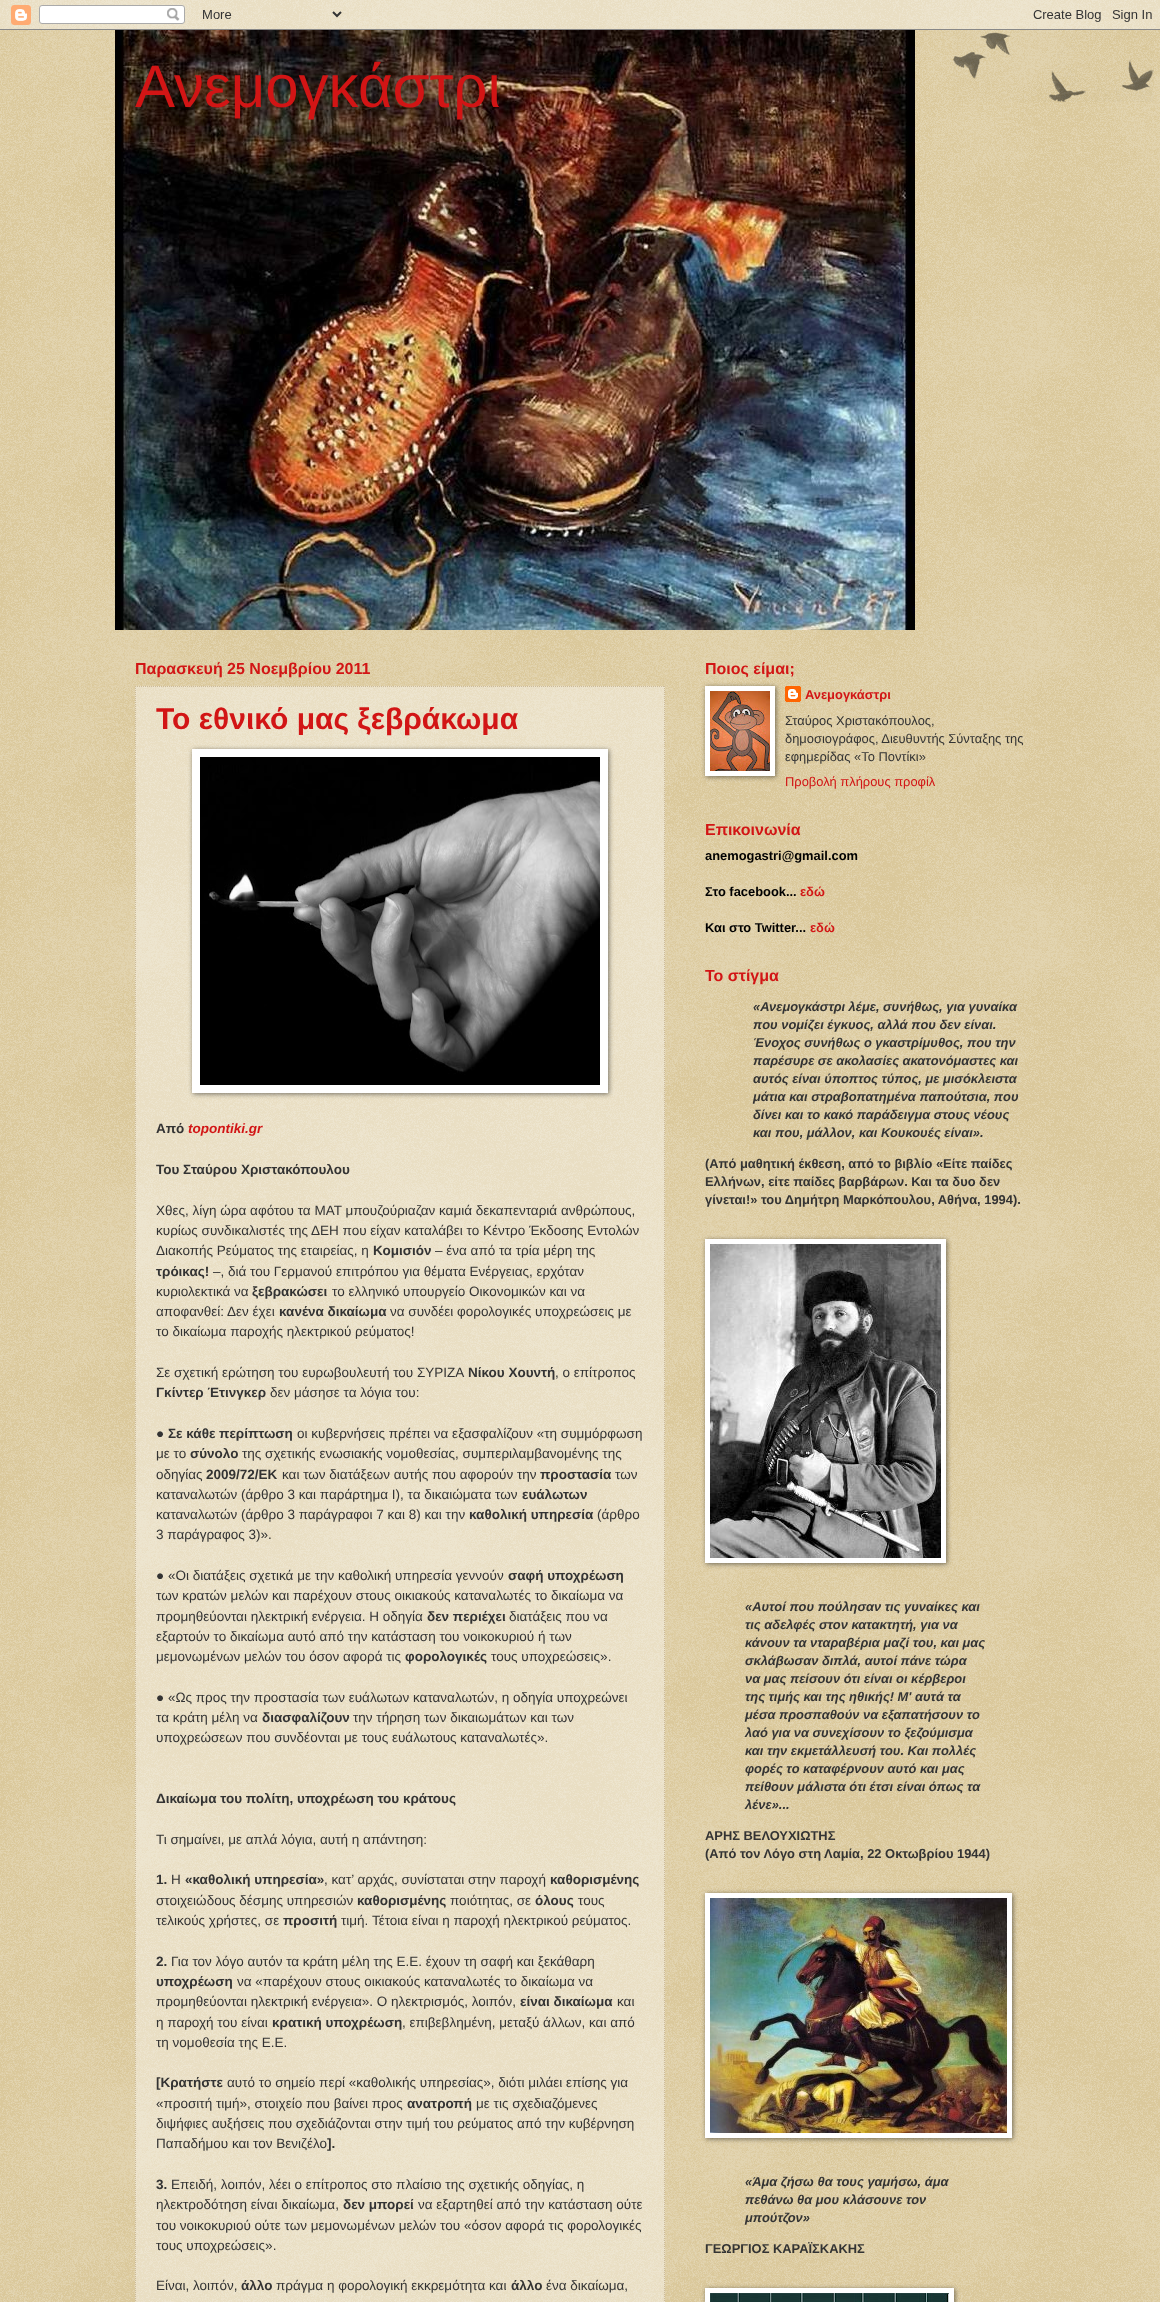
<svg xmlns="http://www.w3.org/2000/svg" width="1160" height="2302">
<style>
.a{font:60px Liberation Sans;fill:#d21515}
.b{font:bold 16px Liberation Sans;fill:#d21515}
.c{font:bold 30px Liberation Sans;fill:#d21515}
.d{font:bold 13.5px Liberation Sans;fill:#333}
.e{font:italic bold 13.5px Liberation Sans;fill:#d21515}
.f{font:13.5px Liberation Sans;fill:#333}
.g{font:bold 12.9px Liberation Sans;fill:#d21515}
.h{font:12.9px Liberation Sans;fill:#333}
.i{font:12.9px Liberation Sans;fill:#d21515}
.j{font:bold 12.9px Liberation Sans;fill:#000}
.k{font:italic bold 12.9px Liberation Sans;fill:#333}
.l{font:bold 12.9px Liberation Sans;fill:#333}
</style>
<rect width="100%" height="100%" fill="#c0a154"/>
<image href="1.png" x="0" y="0" width="1160" height="2302"/>
<image href="2.png" x="0" y="0" width="1160" height="30"/>
<image href="3.png" x="115" y="30" width="800" height="600"/>
<path fill="#ffffff66" d="M135 686h530v1616H135z"/>
<path fill="none" stroke="#cb9" stroke-dasharray="1 1" d="M135 686.5h530"/>
<path fill="none" stroke="#cb9" stroke-dasharray="1 1" d="M664.5 686v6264"/>
<path fill="none" stroke="#cb9" stroke-dasharray="1 1" d="M135.5 686v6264"/>
<path fill="#00000080" filter="blur(2.5px)" d="M193 750h416v344H193z"/>
<path fill="#fff" d="M192 749h416v344H192z"/>
<image href="4.png" x="200" y="757" width="400" height="328"/>
<path fill="#00000080" filter="blur(2.5px)" d="M706 687h70v90H706z"/>
<path fill="#fff" d="M705 686h70v90H705z"/>
<image href="5.png" x="710" y="691" width="60" height="80"/>
<image href="6.png" x="785" y="686" width="16" height="16"/>
<path fill="#00000080" filter="blur(2.5px)" d="M706 1240h241v324H706z"/>
<path fill="#fff" d="M705 1239h241v324H705z"/>
<image href="7.png" x="710" y="1244" width="231" height="314"/>
<path fill="#00000080" filter="blur(2.5px)" d="M706 1894h307v245H706z"/>
<path fill="#fff" d="M705 1893h307v245H705z"/>
<image href="8.png" x="710" y="1898" width="297" height="235"/>
<path fill="#00000080" filter="blur(2.5px)" d="M706 2289h249v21H706z"/>
<path fill="#fff" d="M705 2288h249v14H705z"/>
<image href="9.png" x="710" y="2293" width="239" height="9"/>
<image href="10.png" x="953" y="32" width="201" height="70"/>
<text class="a" x="135" y="107">Ανεμογκάστρι</text>
<text class="b" x="135" y="674">Παρασκευή 25 Νοεμβρίου 2011</text>
<text class="c" x="156" y="729">Το εθνικό μας ξεβράκωμα</text>
<text class="d" x="156" y="1133">Από</text>
<text class="e" x="188" y="1133">topontiki.gr</text>
<text class="d" x="156" y="1174">Του Σταύρου Χριστακόπουλου</text>
<text class="f" x="156" y="1215">Χθες, λίγη ώρα αφότου τα ΜΑΤ μπουζούριαζαν καμιά δεκαπενταριά ανθρώπους,</text>
<text class="f" x="156" y="1235">κυρίως συνδικαλιστές της ΔΕΗ που είχαν καταλάβει το Κέντρο Έκδοσης Εντολών</text>
<text class="f" x="156" y="1255">Διακοπής Ρεύματος της εταιρείας, η</text>
<text class="d" x="373" y="1255">Κομισιόν</text>
<text class="f" x="435" y="1255">– ένα από τα τρία μέρη της</text>
<text class="d" x="156" y="1276">τρόικας!</text>
<text class="f" x="213" y="1276">–, διά του Γερμανού επιτρόπου για θέματα Ενέργειας, ερχόταν</text>
<text class="f" x="156" y="1296">κυριολεκτικά να</text>
<text class="d" x="252" y="1296">ξεβρακώσει</text>
<text class="f" x="332" y="1296">το ελληνικό υπουργείο Οικονομικών και να</text>
<text class="f" x="156" y="1316">αποφανθεί: Δεν έχει</text>
<text class="d" x="279" y="1316">κανένα δικαίωμα</text>
<text class="f" x="390" y="1316">να συνδέει φορολογικές υποχρεώσεις με</text>
<text class="f" x="156" y="1336">το δικαίωμα παροχής ηλεκτρικού ρεύματος!</text>
<text class="f" x="156" y="1377">Σε σχετική ερώτηση του ευρωβουλευτή του ΣΥΡΙΖΑ</text>
<text class="d" x="468" y="1377">Νίκου Χουντή</text>
<text class="f" x="555" y="1377">, ο επίτροπος</text>
<text class="d" x="156" y="1397">Γκίντερ Έτινγκερ</text>
<text class="f" x="270" y="1397">δεν μάσησε τα λόγια του:</text>
<text class="f" x="156" y="1438">●</text>
<text class="d" x="168" y="1438">Σε κάθε περίπτωση</text>
<text class="f" x="297" y="1438">οι κυβερνήσεις πρέπει να εξασφαλίζουν «τη συμμόρφωση</text>
<text class="f" x="156" y="1458">με το</text>
<text class="d" x="190" y="1458">σύνολο</text>
<text class="f" x="242" y="1458">της σχετικής ενωσιακής νομοθεσίας, συμπεριλαμβανομένης της</text>
<text class="f" x="156" y="1479">οδηγίας</text>
<text class="d" x="206" y="1479">2009/72/ΕΚ</text>
<text class="f" x="282" y="1479">και των διατάξεων αυτής που αφορούν την</text>
<text class="d" x="540" y="1479">προστασία</text>
<text class="f" x="615" y="1479">των</text>
<text class="f" x="156" y="1499">καταναλωτών (άρθρο 3 και παράρτημα Ι), τα δικαιώματα των</text>
<text class="d" x="522" y="1499">ευάλωτων</text>
<text class="f" x="156" y="1519">καταναλωτών (άρθρο 3 παράγραφοι 7 και 8) και την</text>
<text class="d" x="469" y="1519">καθολική υπηρεσία</text>
<text class="f" x="597" y="1519">(άρθρο</text>
<text class="f" x="156" y="1539">3 παράγραφος 3)».</text>
<text class="f" x="156" y="1580">● «Οι διατάξεις σχετικά με την καθολική υπηρεσία γεννούν</text>
<text class="d" x="508" y="1580">σαφή υποχρέωση</text>
<text class="f" x="156" y="1600">των κρατών μελών και παρέχουν στους οικιακούς καταναλωτές το δικαίωμα να</text>
<text class="f" x="156" y="1621">προμηθεύονται ηλεκτρική ενέργεια. Η οδηγία</text>
<text class="d" x="427" y="1621">δεν περιέχει</text>
<text class="f" x="509" y="1621">διατάξεις που να</text>
<text class="f" x="156" y="1641">εξαρτούν το δικαίωμα αυτό από την κατάσταση του νοικοκυριού ή των</text>
<text class="f" x="156" y="1661">μεμονωμένων μελών του όσον αφορά τις</text>
<text class="d" x="405" y="1661">φορολογικές</text>
<text class="f" x="491" y="1661">τους υποχρεώσεις».</text>
<text class="f" x="156" y="1702">● «Ως προς την προστασία των ευάλωτων καταναλωτών, η οδηγία υποχρεώνει</text>
<text class="f" x="156" y="1722">τα κράτη μέλη να</text>
<text class="d" x="262" y="1722">διασφαλίζουν</text>
<text class="f" x="353" y="1722">την τήρηση των δικαιωμάτων και των</text>
<text class="f" x="156" y="1742">υποχρεώσεων που συνδέονται με τους ευάλωτους καταναλωτές».</text>
<text class="d" x="156" y="1803">Δικαίωμα του πολίτη, υποχρέωση του κράτους</text>
<text class="f" x="156" y="1844">Τι σημαίνει, με απλά λόγια, αυτή η απάντηση:</text>
<text class="d" x="156" y="1884">1.</text>
<text class="f" x="171" y="1884">Η</text>
<text class="d" x="185" y="1884">«καθολική υπηρεσία»</text>
<text class="f" x="324" y="1884">, κατ’ αρχάς, συνίσταται στην παροχή</text>
<text class="d" x="550" y="1884">καθορισμένης</text>
<text class="f" x="156" y="1905">στοιχειώδους δέσμης υπηρεσιών</text>
<text class="d" x="357" y="1905">καθορισμένης</text>
<text class="f" x="450" y="1905">ποιότητας, σε</text>
<text class="d" x="535" y="1905">όλους</text>
<text class="f" x="578" y="1905">τους</text>
<text class="f" x="156" y="1925">τελικούς χρήστες, σε</text>
<text class="d" x="283" y="1925">προσιτή</text>
<text class="f" x="341" y="1925">τιμή. Τέτοια είναι η παροχή ηλεκτρικού ρεύματος.</text>
<text class="d" x="156" y="1966">2.</text>
<text class="f" x="171" y="1966">Για τον λόγο αυτόν τα κράτη μέλη της Ε.Ε. έχουν τη σαφή και ξεκάθαρη</text>
<text class="d" x="156" y="1986">υποχρέωση</text>
<text class="f" x="237" y="1986">να «παρέχουν στους οικιακούς καταναλωτές το δικαίωμα να</text>
<text class="f" x="156" y="2006">προμηθεύονται ηλεκτρική ενέργεια». Ο ηλεκτρισμός, λοιπόν,</text>
<text class="d" x="520" y="2006">είναι δικαίωμα</text>
<text class="f" x="617" y="2006">και</text>
<text class="f" x="156" y="2027">η παροχή του είναι</text>
<text class="d" x="272" y="2027">κρατική υποχρέωση</text>
<text class="f" x="402" y="2027">, επιβεβλημένη, μεταξύ άλλων, και από</text>
<text class="f" x="156" y="2047">τη νομοθεσία της Ε.Ε.</text>
<text class="d" x="156" y="2087">[Κρατήστε</text>
<text class="f" x="227" y="2087">αυτό το σημείο περί «καθολικής υπηρεσίας», διότι μιλάει επίσης για</text>
<text class="f" x="156" y="2108">«προσιτή τιμή», στοιχείο που βαίνει προς</text>
<text class="d" x="407" y="2108">ανατροπή</text>
<text class="f" x="476" y="2108">με τις σχεδιαζόμενες</text>
<text class="f" x="156" y="2128">διψήφιες αυξήσεις που σχεδιάζονται στην τιμή του ρεύματος από την κυβέρνηση</text>
<text class="f" x="156" y="2148">Παπαδήμου και τον Βενιζέλο</text>
<text class="d" x="327" y="2148">].</text>
<text class="d" x="156" y="2189">3.</text>
<text class="f" x="171" y="2189">Επειδή, λοιπόν, λέει ο επίτροπος στο πλαίσιο της σχετικής οδηγίας, η</text>
<text class="f" x="156" y="2209">ηλεκτροδότηση είναι δικαίωμα,</text>
<text class="d" x="343" y="2209">δεν μπορεί</text>
<text class="f" x="418" y="2209">να εξαρτηθεί από την κατάσταση ούτε</text>
<text class="f" x="156" y="2230">του νοικοκυριού ούτε των μεμονωμένων μελών του «όσον αφορά τις φορολογικές</text>
<text class="f" x="156" y="2250">τους υποχρεώσεις».</text>
<text class="f" x="156" y="2290">Είναι, λοιπόν,</text>
<text class="d" x="241" y="2290">άλλο</text>
<text class="f" x="276" y="2290">πράγμα η φορολογική εκκρεμότητα και</text>
<text class="d" x="511" y="2290">άλλο</text>
<text class="f" x="546" y="2290">ένα δικαίωμα,</text>
<text class="b" x="705" y="674">Ποιος είμαι;</text>
<text class="g" x="805" y="699">Ανεμογκάστρι</text>
<text class="h" x="785" y="725">Σταύρος Χριστακόπουλος,</text>
<text class="h" x="785" y="743">δημοσιογράφος, Διευθυντής Σύνταξης της</text>
<text class="h" x="785" y="761">εφημερίδας «Το Ποντίκι»</text>
<text class="i" x="785" y="786">Προβολή πλήρους προφίλ</text>
<text class="b" x="705" y="835">Επικοινωνία</text>
<text class="j" x="705" y="860">anemogastri@gmail.com</text>
<text class="j" x="705" y="896">Στο facebook...</text>
<text class="g" x="800" y="896">εδώ</text>
<text class="j" x="705" y="932">Και στο Twitter...</text>
<text class="g" x="810" y="932">εδώ</text>
<text class="b" x="705" y="981">Το στίγμα</text>
<text class="k" x="753" y="1011">«Ανεμογκάστρι λέμε, συνήθως, για γυναίκα</text>
<text class="k" x="753" y="1029">που νομίζει έγκυος, αλλά που δεν είναι.</text>
<text class="k" x="753" y="1047">Ένοχος συνήθως ο γκαστρίμυθος, που την</text>
<text class="k" x="753" y="1065">παρέσυρε σε ακολασίες ακατονόμαστες και</text>
<text class="k" x="753" y="1083">αυτός είναι ύποπτος τύπος, με μισόκλειστα</text>
<text class="k" x="753" y="1101">μάτια και στραβοπατημένα παπούτσια, που</text>
<text class="k" x="753" y="1119">δίνει και το κακό παράδειγμα στους νέους</text>
<text class="k" x="753" y="1137">και που, μάλλον, και Κουκουές είναι».</text>
<text class="l" x="705" y="1168">(Από μαθητική έκθεση, από το βιβλίο «Είτε παίδες</text>
<text class="l" x="705" y="1186">Ελλήνων, είτε παίδες βαρβάρων. Και τα δυο δεν</text>
<text class="l" x="705" y="1204">γίνεται!» του Δημήτρη Μαρκόπουλου, Αθήνα, 1994).</text>
<text class="k" x="745" y="1611">«Αυτοί που πούλησαν τις γυναίκες και</text>
<text class="k" x="745" y="1629">τις αδελφές στον κατακτητή, για να</text>
<text class="k" x="745" y="1647">κάνουν τα νταραβέρια μαζί του, και μας</text>
<text class="k" x="745" y="1665">σκλάβωσαν διπλά, αυτοί πάνε τώρα</text>
<text class="k" x="745" y="1683">να μας πείσουν ότι είναι οι κέρβεροι</text>
<text class="k" x="745" y="1701">της τιμής και της ηθικής! Μ' αυτά τα</text>
<text class="k" x="745" y="1719">μέσα προσπαθούν να εξαπατήσουν το</text>
<text class="k" x="745" y="1737">λαό για να συνεχίσουν το ξεζούμισμα</text>
<text class="k" x="745" y="1755">και την εκμετάλλευσή του. Και πολλές</text>
<text class="k" x="745" y="1773">φορές το καταφέρνουν αυτό και μας</text>
<text class="k" x="745" y="1791">πείθουν μάλιστα ότι έτσι είναι όπως τα</text>
<text class="k" x="745" y="1809">λένε»...</text>
<text class="l" x="705" y="1840">ΑΡΗΣ ΒΕΛΟΥΧΙΩΤΗΣ</text>
<text class="l" x="705" y="1858">(Από τον Λόγο στη Λαμία, 22 Οκτωβρίου 1944)</text>
<text class="k" x="745" y="2186">«Άμα ζήσω θα τους γαμήσω, άμα</text>
<text class="k" x="745" y="2204">πεθάνω θα μου κλάσουνε τον</text>
<text class="k" x="745" y="2222">μπούτζον»</text>
<text class="l" x="705" y="2253">ΓΕΩΡΓΙΟΣ ΚΑΡΑΪΣΚΑΚΗΣ</text>
</svg>
